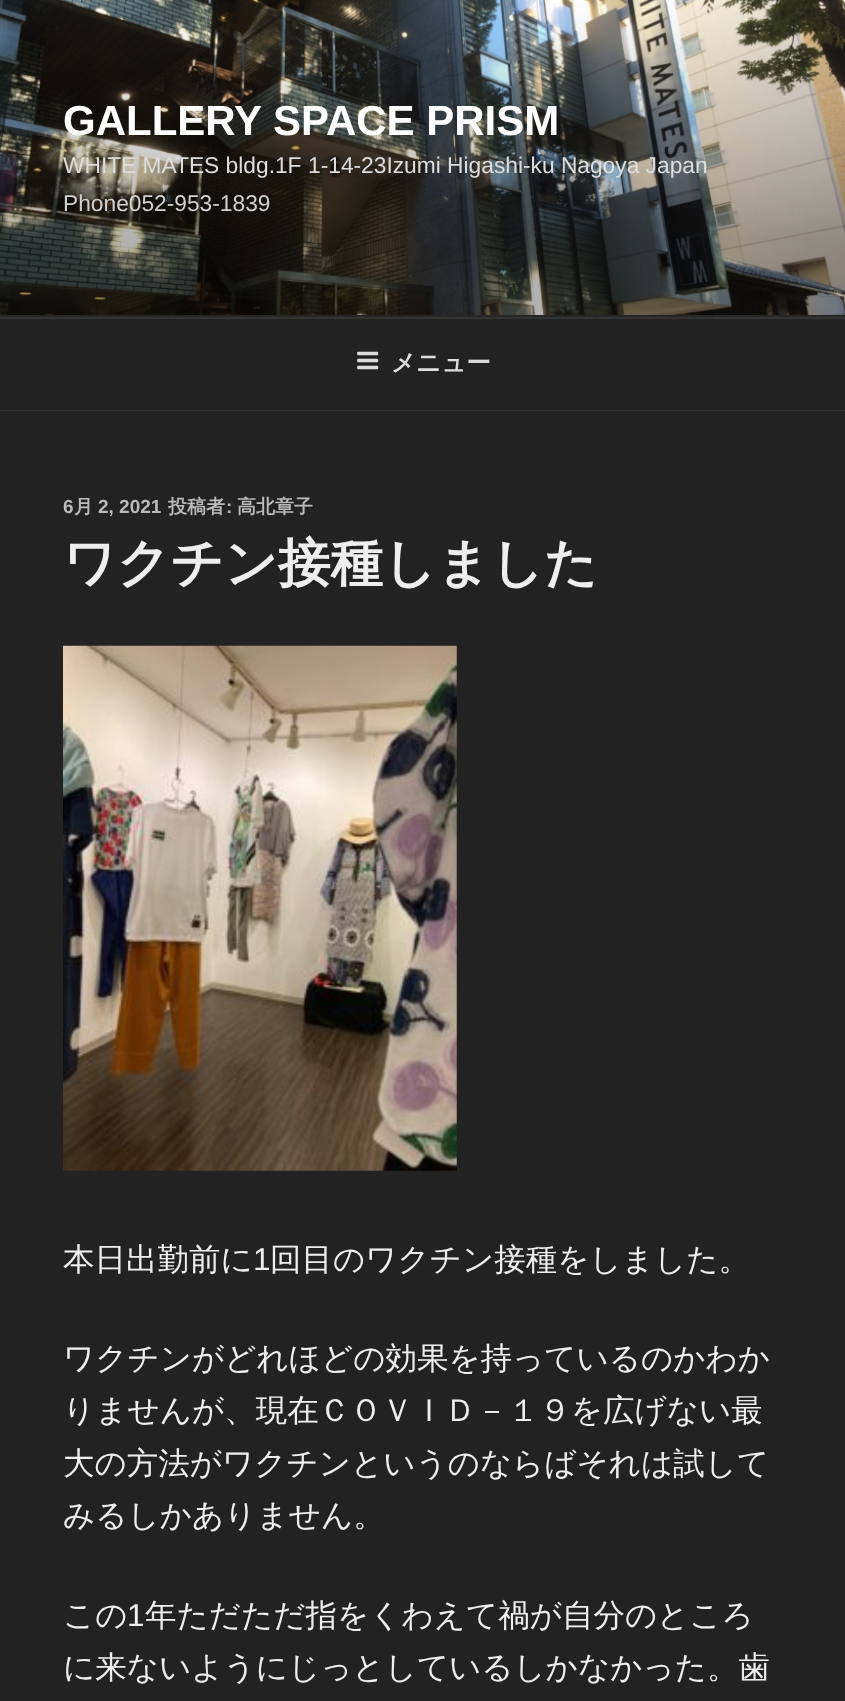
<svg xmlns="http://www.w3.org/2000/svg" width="845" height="1701">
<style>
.a{font:bold 42px Liberation Sans;fill:#fff}
.b{font:22.75px Liberation Sans;fill:#ddd}
.c{font:22.75px Liberation Sans;fill:#d1d1cf}
.d{font:bold 24.5px WenQuanYi Zen Hei;fill:#ddd}
.e{font:bold 19px Liberation Sans;fill:#bbb}
.f{font:bold 19px WenQuanYi Zen Hei;fill:#bbb}
.g{font:bold 52.5px WenQuanYi Zen Hei;fill:#eee}
.h{font:500 31.5px WenQuanYi Zen Hei;fill:#eee}
.i{font:31.5px Liberation Sans;fill:#eee}
</style>
<rect width="100%" height="100%" fill="#262626"/>
<image href="1.png" x="0" y="0" width="845" height="315"/>
<path fill="#222" d="M0 319h845v91H0z"/>
<path fill="#333" d="M0 317h845v2H0z"/>
<path fill="#333" d="M0 410h845v1H0z"/>
<image href="2.png" x="357" y="351" width="22" height="19"/>
<path fill="#222" d="M0 411h845v1290H0z"/>
<image href="3.png" x="63" y="645" width="394" height="526"/>
<text class="a" x="63" y="135">GALLERY SPACE PRISM</text>
<text class="b" x="63" y="173">WHITE MATES bldg.1F</text>
<text class="b" x="308" y="173">1-14-23Izumi Higashi-ku Nagoya Japan</text>
<text class="c" x="63" y="211">Phone052-953-1839</text>
<text class="d" x="391" y="371">メニュー</text>
<text class="e" x="63" y="513">6</text>
<text class="f" x="74" y="513">月</text>
<text class="e" x="98" y="513">2, 2021</text>
<text class="f" x="168" y="513">投稿者</text>
<text class="e" x="226" y="513">:</text>
<text class="f" x="237" y="513">高北章子</text>
<text class="g" x="63" y="581">ワクチン接種しました</text>
<text class="h" x="63" y="1270">本日出勤前に</text>
<text class="i" x="253" y="1270">1</text>
<text class="h" x="270" y="1270">回目のワクチン接種をしました。</text>
<text class="h" x="63" y="1369">ワクチンがどれほどの効果を持っているのかわか</text>
<text class="h" x="63" y="1421">りませんが、現在ＣＯＶＩＤ－１９を広げない最</text>
<text class="h" x="63" y="1474">大の方法がワクチンというのならばそれは試して</text>
<text class="h" x="63" y="1526">みるしかありません。</text>
<text class="h" x="63" y="1626">この</text>
<text class="i" x="127" y="1626">1</text>
<text class="h" x="145" y="1626">年ただただ指をくわえて禍が自分のところ</text>
<text class="h" x="63" y="1678">に来ないようにじっとしているしかなかった。歯</text>
</svg>
